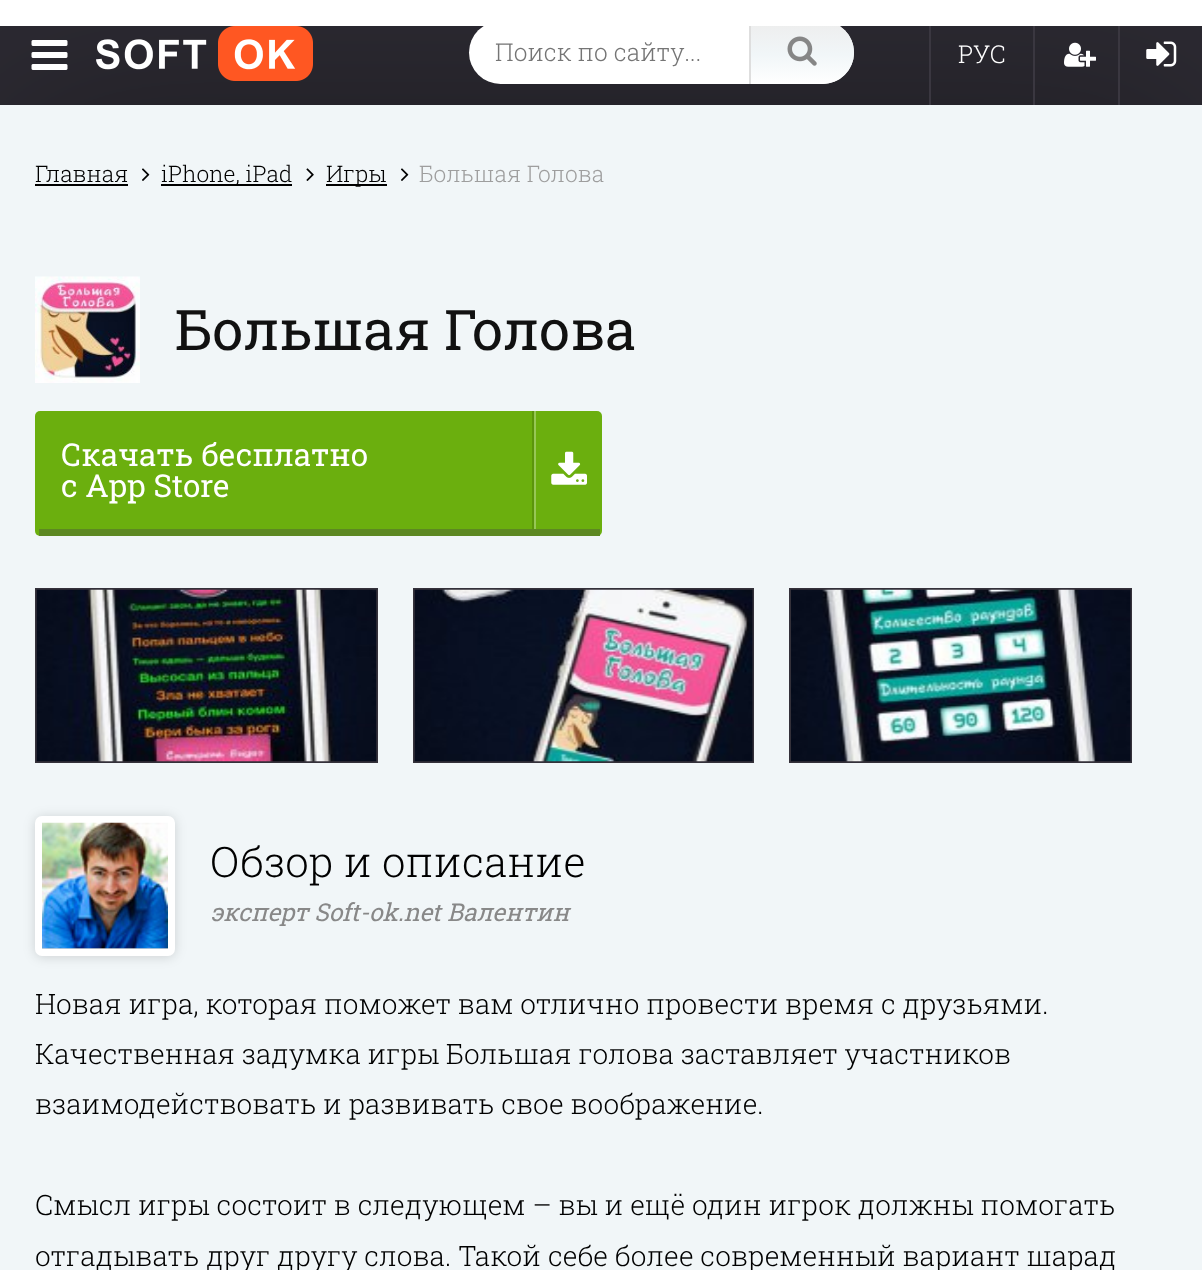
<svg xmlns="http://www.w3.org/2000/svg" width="1202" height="1270">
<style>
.a{font:300 24.5px Roboto Slab;fill:#757575}
.b{font:300 24.5px Roboto Slab;fill:#fff}
.c{font:300 22.75px Roboto Slab;fill:#000}
.d{font:300 22.75px Roboto Slab;fill:#9e9e9e}
.e{font:56px Roboto Slab;fill:#111}
.f{font:31.5px Roboto Slab;fill:#fff}
.g{font:300 42px Roboto Slab;fill:#000}
.h{font:italic 24.5px Roboto Slab;fill:#888}
.i{font:300 28px Roboto Slab;fill:#000}
</style>
<defs>
<linearGradient id="g1" gradientUnits="userSpaceOnUse" x1="802" y1="21" x2="802" y2="84"><stop offset="0" stop-color="#ededed"/><stop offset="0.53" stop-color="#f1f6f8"/><stop offset="1" stop-color="#fff"/></linearGradient>
</defs>
<rect width="100%" height="100%" fill="#2c2a32"/>
<rect fill="#0000004d" filter="blur(87.5px)" y="105" width="1202" height="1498" rx="70"/>
<rect fill="#fff" x="469" y="21" width="385" height="63" rx="31.5"/>
<path fill="url(#g1)" d="M749 21h73.5c17.5 0 31.5 14 31.5 31.5c0 17.5-14 31.5-31.5 31.5h-73.5z"/>
<path fill="#dedede" d="M749 21h2v63H749z"/>
<path fill="#fff" d="M0 0h1202v26H0z"/>
<image href="1.png" x="31" y="40" width="37" height="30"/>
<image href="2.png" x="96" y="26" width="217" height="55"/>
<image href="3.png" x="787" y="36" width="30" height="30"/>
<path fill="#3a3740" d="M929 26h2v79H929z"/>
<path fill="#3a3740" d="M1033 26h2v79H1033z"/>
<image href="4.png" x="1064" y="42" width="32" height="25"/>
<path fill="#3a3740" d="M1118 26h2v79H1118z"/>
<image href="5.png" x="1146" y="41" width="31" height="26"/>
<path fill="#f1f6f8" d="M0 105h1202v1165H0z"/>
<path fill="#000" d="M35 184h93v2H35z"/>
<image href="6.png" x="142" y="168" width="8" height="13"/>
<path fill="#000" d="M161 184h131v2H161z"/>
<image href="7.png" x="306" y="168" width="8" height="13"/>
<path fill="#000" d="M326 184h61v2H326z"/>
<image href="6.png" x="401" y="168" width="8" height="13"/>
<image href="8.png" x="35" y="276" width="105" height="107"/>
<rect fill="#6baf0e" x="35" y="411" width="567" height="125" rx="5"/>
<path fill="#5d8822" d="M39 529h561v7H39z"/>
<path fill="#5b950c" d="M532 411h2v118H532z"/>
<path fill="#97c756" d="M534 411h2v118H534z"/>
<image href="9.png" x="551" y="451" width="36" height="34"/>
<path fill="none" stroke="#34313a" stroke-width="2" d="M36 589h341v173H36z"/>
<image href="10.png" x="36" y="589" width="341" height="173"/>
<path fill="none" stroke="#34313a" stroke-width="2" d="M414 589h339v173H414z"/>
<image href="11.png" x="414" y="589" width="339" height="173"/>
<path fill="none" stroke="#34313a" stroke-width="2" d="M790 589h341v173H790z"/>
<image href="12.png" x="791" y="589" width="340" height="173"/>
<rect fill="#00000026" filter="blur(6px)" x="35" y="817" width="140" height="140" rx="7"/>
<rect fill="none" stroke="#fff" stroke-width="7" x="38.5" y="819.5" width="133" height="133" rx="3.5"/>
<image href="13.png" x="42" y="822" width="126" height="127"/>
<text class="a" x="495" y="61">Поиск по сайту...</text>
<text class="b" x="958" y="63">РУС</text>
<text class="c" x="35" y="182">Главная</text>
<text class="c" x="161" y="182">iPhone, iPad</text>
<text class="c" x="326" y="182">Игры</text>
<text class="d" x="419" y="182">Большая Голова</text>
<text class="e" x="175" y="350">Большая Голова</text>
<text class="f" x="61" y="466">Скачать бесплатно</text>
<text class="f" x="61" y="497">с App Store</text>
<text class="g" x="210" y="877">Обзор и описание</text>
<text class="h" x="210" y="921">эксперт Soft-ok.net Валентин</text>
<text class="i" x="35" y="1014">Новая игра, которая поможет вам отлично провести время с друзьями.</text>
<text class="i" x="35" y="1064">Качественная задумка игры Большая голова заставляет участников</text>
<text class="i" x="35" y="1114">взаимодействовать и развивать свое воображение.</text>
<text class="i" x="35" y="1215">Смысл игры состоит в следующем – вы и ещё один игрок должны помогать</text>
<text class="i" x="35" y="1266">отгадывать друг другу слова. Такой себе более современный вариант шарад</text>
</svg>
